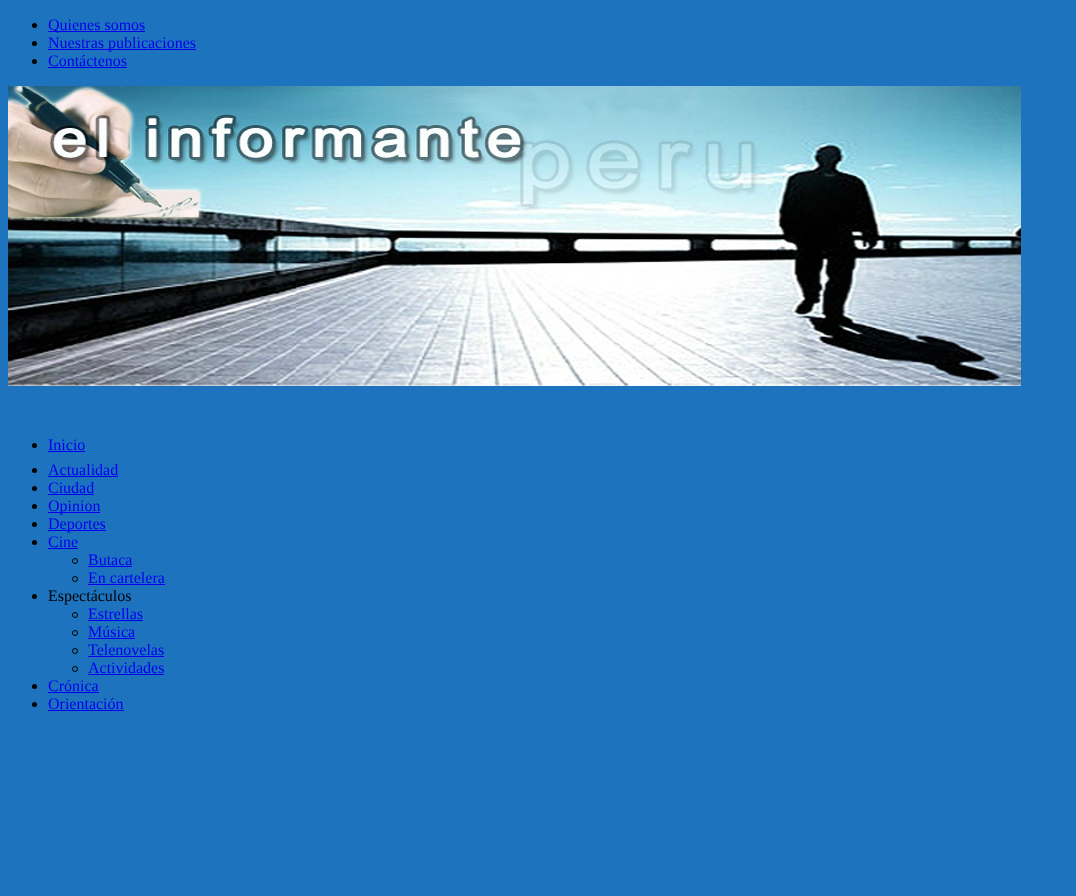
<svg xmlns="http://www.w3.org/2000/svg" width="1076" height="896">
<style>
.a{font:16px Liberation Serif;fill:#00e}
.b{font:16px Liberation Serif;fill:#000}
</style>
<rect width="100%" height="100%" fill="#1e73be"/>
<circle fill="#000" cx="34.5" cy="25.5" r="2.5"/>
<path fill="#00e" d="M48 31h97v1H48z"/>
<circle fill="#000" cx="34.5" cy="43.5" r="2.5"/>
<path fill="#00e" d="M48 49h148v1H48z"/>
<circle fill="#000" cx="34.5" cy="61.5" r="2.5"/>
<path fill="#00e" d="M48 67h79v1H48z"/>
<image href="1.png" x="8" y="86" width="1013" height="300"/>
<circle fill="#000" cx="34.5" cy="445.5" r="2.5"/>
<path fill="#00e" d="M48 451h37v1H48z"/>
<circle fill="#000" cx="34.5" cy="470.5" r="2.5"/>
<path fill="#00e" d="M48 476h70v1H48z"/>
<circle fill="#000" cx="34.5" cy="488.5" r="2.5"/>
<path fill="#00e" d="M48 494h46v1H48z"/>
<circle fill="#000" cx="34.5" cy="506.5" r="2.5"/>
<path fill="#00e" d="M48 512h52v1H48z"/>
<circle fill="#000" cx="34.5" cy="524.5" r="2.5"/>
<path fill="#00e" d="M48 530h58v1H48z"/>
<circle fill="#000" cx="34.5" cy="542.5" r="2.5"/>
<path fill="#00e" d="M48 548h30v1H48z"/>
<circle fill="none" stroke="#000" cx="75" cy="561" r="2.5"/>
<path fill="#00e" d="M88 566h44v1H88z"/>
<circle fill="none" stroke="#000" cx="75" cy="579" r="2.5"/>
<path fill="#00e" d="M88 584h77v1H88z"/>
<circle fill="#000" cx="34.5" cy="596.5" r="2.5"/>
<circle fill="none" stroke="#000" cx="75" cy="615" r="2.5"/>
<path fill="#00e" d="M88 620h55v1H88z"/>
<circle fill="none" stroke="#000" cx="75" cy="633" r="2.5"/>
<path fill="#00e" d="M88 638h47v1H88z"/>
<circle fill="none" stroke="#000" cx="75" cy="651" r="2.5"/>
<path fill="#00e" d="M88 656h76v1H88z"/>
<circle fill="none" stroke="#000" cx="75" cy="669" r="2.5"/>
<path fill="#00e" d="M88 674h76v1H88z"/>
<circle fill="#000" cx="34.5" cy="686.5" r="2.5"/>
<path fill="#00e" d="M48 692h51v1H48z"/>
<circle fill="#000" cx="34.5" cy="704.5" r="2.5"/>
<path fill="#00e" d="M48 710h76v1H48z"/>
<text class="a" x="48" y="30">Quienes somos</text>
<text class="a" x="48" y="48">Nuestras publicaciones</text>
<text class="a" x="48" y="66">Contáctenos</text>
<text class="a" x="48" y="450">Inicio</text>
<text class="a" x="48" y="475">Actualidad</text>
<text class="a" x="48" y="493">Ciudad</text>
<text class="a" x="48" y="511">Opinion</text>
<text class="a" x="48" y="529">Deportes</text>
<text class="a" x="48" y="547">Cine</text>
<text class="a" x="88" y="565">Butaca</text>
<text class="a" x="88" y="583">En cartelera</text>
<text class="b" x="48" y="601">Espectáculos</text>
<text class="a" x="88" y="619">Estrellas</text>
<text class="a" x="88" y="637">Música</text>
<text class="a" x="88" y="655">Telenovelas</text>
<text class="a" x="88" y="673">Actividades</text>
<text class="a" x="48" y="691">Crónica</text>
<text class="a" x="48" y="709">Orientación</text>
</svg>
